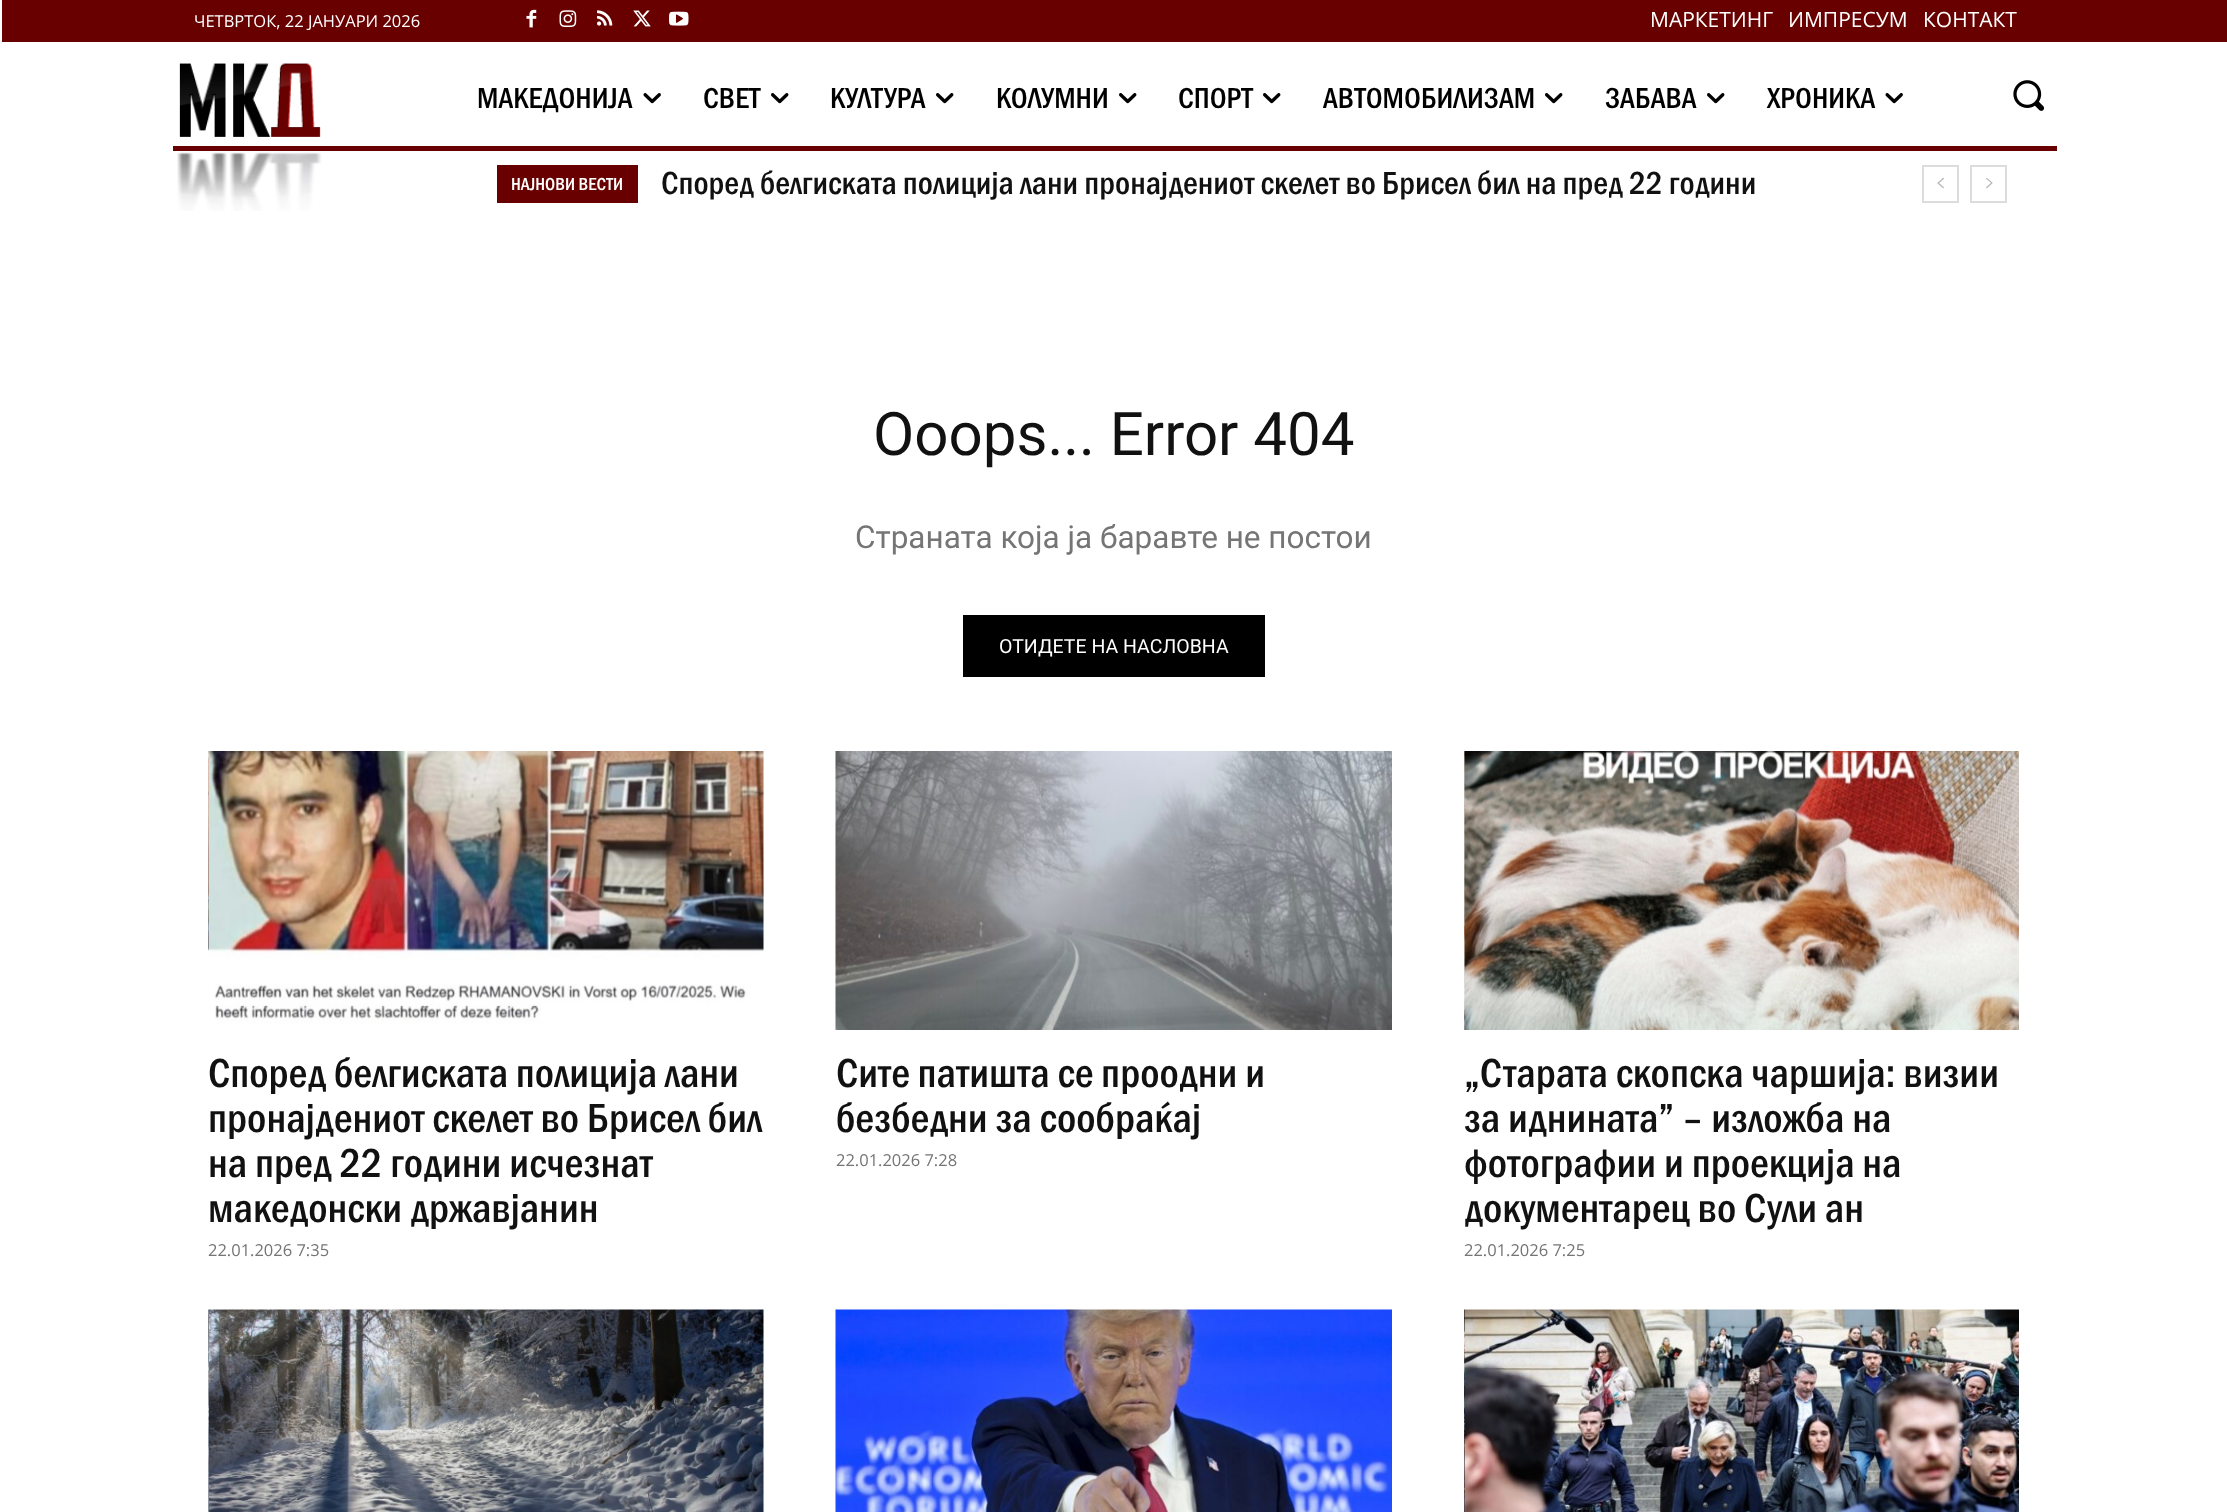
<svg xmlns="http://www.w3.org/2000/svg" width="2227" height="1512">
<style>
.a{font:16.5px Open Sans;fill:#fff}
.b{font:21px Open Sans;fill:#fff}
.c{font:500 30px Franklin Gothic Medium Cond;fill:#000}
.d{font:500 18px Franklin Gothic Medium Cond;fill:#fff}
.e{font:500 33px Franklin Gothic Medium Cond;fill:#111}
.f{font:60px Roboto;fill:#111}
.g{font:31.5px Roboto;fill:#757575}
.h{font:19.5px Roboto;fill:#fff}
.i{font:500 42px Franklin Gothic Medium Cond;fill:#111}
.j{font:16.5px Open Sans;fill:#757575}
</style>
<rect width="100%" height="100%" fill="#fff"/>
<path fill="#680000" d="M2 0h2225v42H2z"/>
<image href="1.png" x="526" y="9" width="11" height="19"/>
<image href="2.png" x="559" y="10" width="18" height="17"/>
<image href="3.png" x="597" y="10" width="16" height="16"/>
<image href="4.png" x="633" y="10" width="18" height="17"/>
<image href="5.png" x="669" y="11" width="20" height="15"/>
<image href="6.png" x="179" y="63" width="142" height="74"/>
<image href="7.png" x="643" y="93" width="18" height="11"/>
<image href="8.png" x="771" y="93" width="18" height="11"/>
<image href="8.png" x="936" y="93" width="18" height="11"/>
<image href="8.png" x="1119" y="93" width="18" height="11"/>
<image href="8.png" x="1263" y="93" width="18" height="11"/>
<image href="8.png" x="1545" y="93" width="18" height="11"/>
<image href="8.png" x="1707" y="93" width="18" height="11"/>
<image href="7.png" x="1885" y="93" width="18" height="11"/>
<image href="9.png" x="2013" y="80" width="32" height="31"/>
<path fill="#680000" d="M173 146h1884v5H173z"/>
<image href="10.png" x="177" y="152" width="145" height="59"/>
<path fill="#680000" d="M497 165h141v38H497z"/>
<path fill="none" stroke="#dcdcdc" stroke-width="2" d="M1923 166h35v36H1923z"/>
<image href="11.png" x="1937" y="177" width="7" height="12"/>
<path fill="none" stroke="#dcdcdc" stroke-width="2" d="M1971 166h35v36H1971z"/>
<image href="12.png" x="1986" y="178" width="7" height="11"/>
<path fill="#000" d="M963 615h302v62H963z"/>
<image href="13.png" x="208" y="751" width="556" height="279"/>
<image href="14.png" x="835" y="751" width="557" height="279"/>
<image href="15.png" x="1464" y="751" width="555" height="279"/>
<image href="16.png" x="208" y="1309" width="556" height="203"/>
<image href="17.png" x="835" y="1309" width="557" height="203"/>
<image href="18.png" x="1464" y="1309" width="555" height="203"/>
<text class="a" x="194" y="27">ЧЕТВРТОК, 22 ЈАНУАРИ 2026</text>
<text class="b" x="1650" y="27">МАРКЕТИНГ</text>
<text class="b" x="1788" y="27">ИМПРЕСУМ</text>
<text class="b" x="1923" y="27">КОНТАКТ</text>
<text class="c" x="477" y="108">МАКЕДОНИЈА</text>
<text class="c" x="703" y="108">СВЕТ</text>
<text class="c" x="830" y="108">КУЛТУРА</text>
<text class="c" x="996" y="108">КОЛУМНИ</text>
<text class="c" x="1178" y="108">СПОРТ</text>
<text class="c" x="1323" y="108">АВТОМОБИЛИЗАМ</text>
<text class="c" x="1605" y="108">ЗАБАВА</text>
<text class="c" x="1767" y="108">ХРОНИКА</text>
<text class="d" x="511" y="190">НАЈНОВИ ВЕСТИ</text>
<text class="e" x="661" y="194">Според белгиската полиција лани пронајдениот скелет во Брисел бил на пред 22 години</text>
<text class="f" x="873" y="455">Ooops... Error 404</text>
<text class="g" x="855" y="548">Страната која ја баравте не постои</text>
<text class="h" x="999" y="653">ОТИДЕТЕ НА НАСЛОВНА</text>
<text class="i" x="208" y="1087">Според белгиската полиција лани</text>
<text class="i" x="208" y="1132">пронајдениот скелет во Брисел бил</text>
<text class="i" x="208" y="1177">на пред 22 години исчезнат</text>
<text class="i" x="208" y="1222">македонски државјанин</text>
<text class="j" x="208" y="1256">22.01.2026 7:35</text>
<text class="i" x="836" y="1087">Сите патишта се проодни и</text>
<text class="i" x="836" y="1132">безбедни за сообраќај</text>
<text class="j" x="836" y="1166">22.01.2026 7:28</text>
<text class="i" x="1464" y="1087">„Старата скопска чаршија: визии</text>
<text class="i" x="1464" y="1132">за иднината” – изложба на</text>
<text class="i" x="1464" y="1177">фотографии и проекција на</text>
<text class="i" x="1464" y="1222">документарец во Сули ан</text>
<text class="j" x="1464" y="1256">22.01.2026 7:25</text>
</svg>
